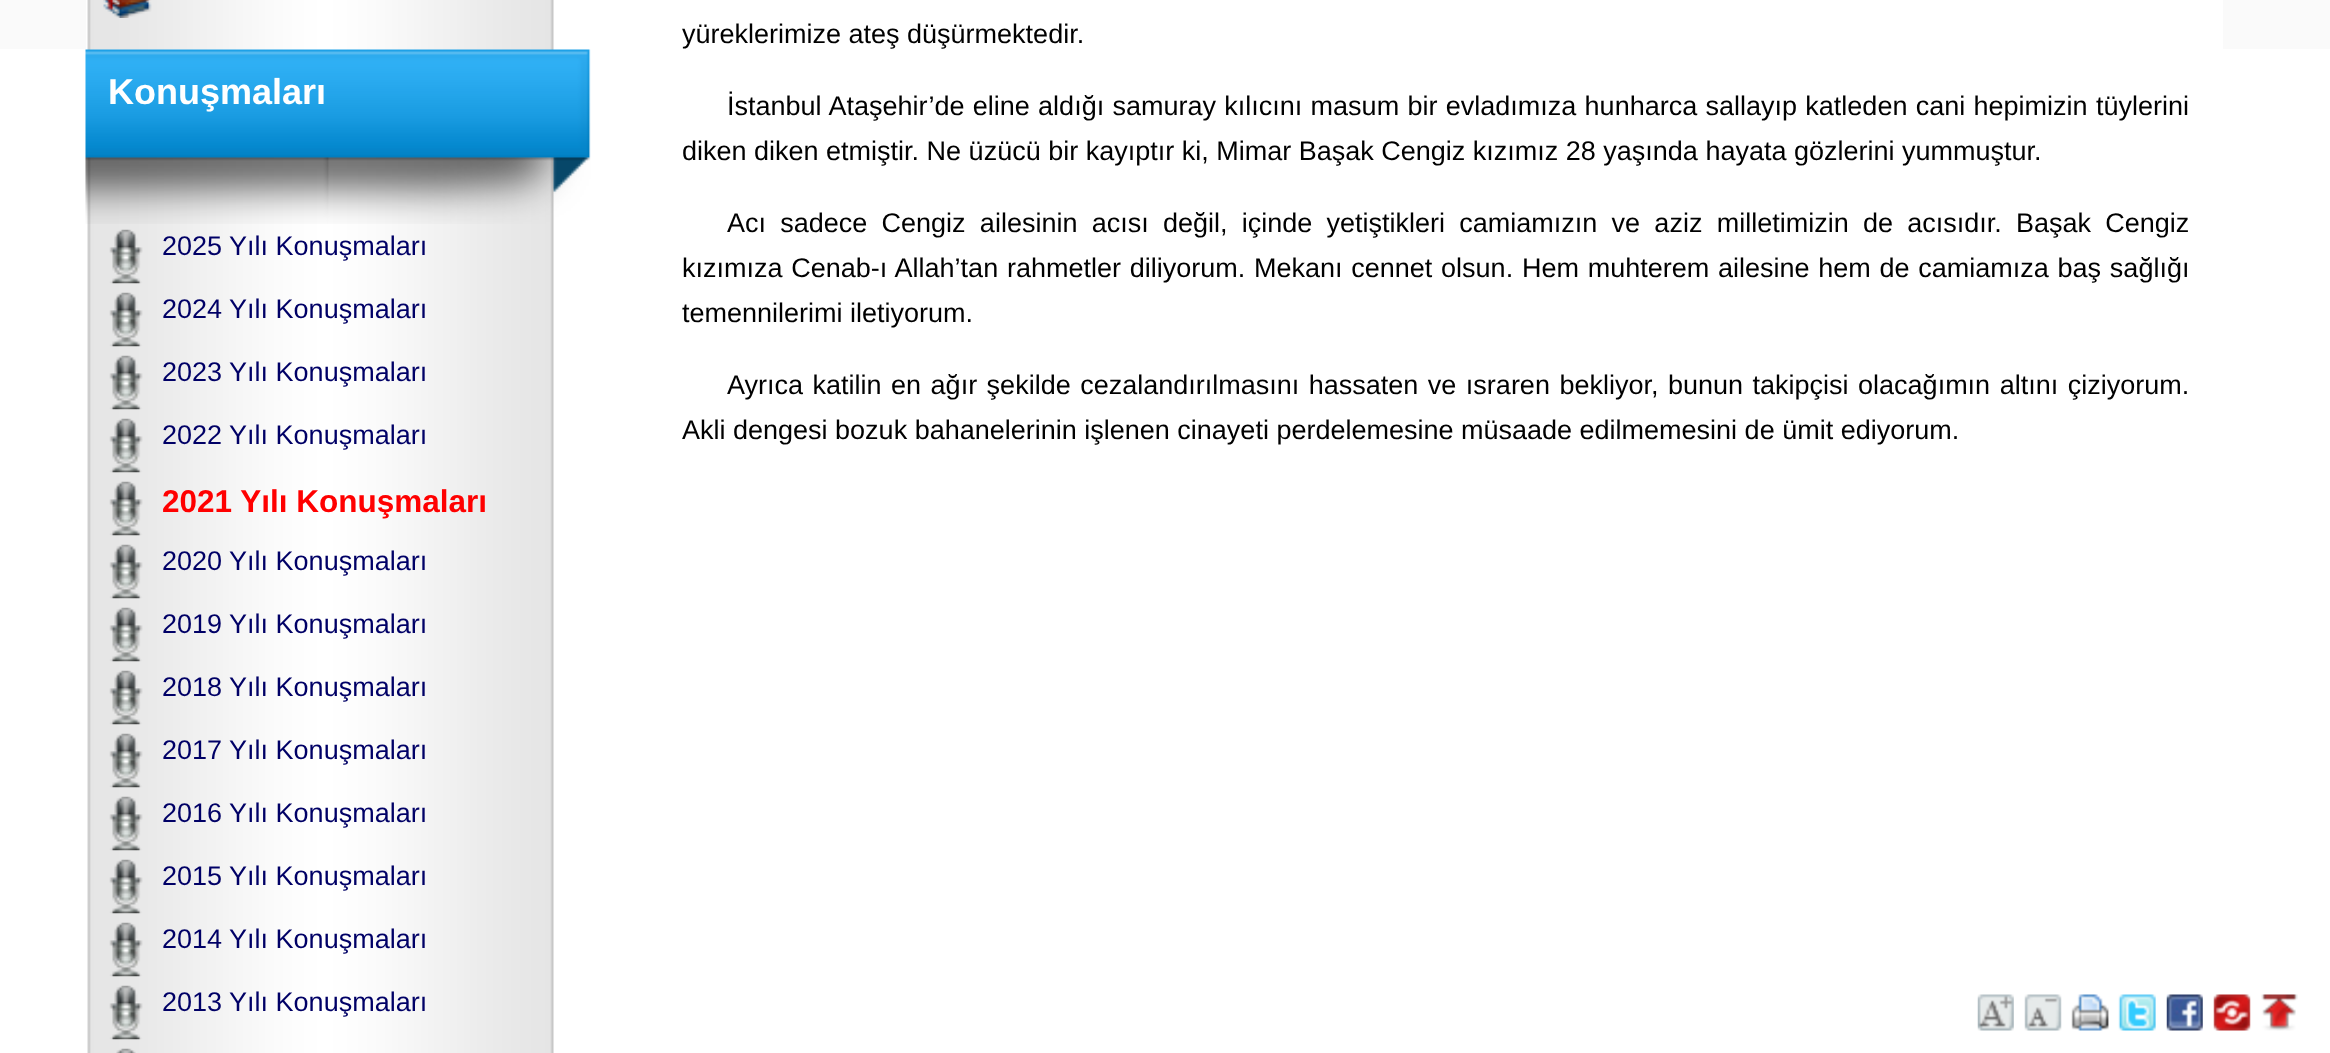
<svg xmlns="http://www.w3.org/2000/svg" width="2330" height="1053">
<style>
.a{font:bold 36px Liberation Sans;fill:#fff}
.b{font:27px Liberation Sans;fill:#006}
.c{font:bold 31.5px Liberation Sans;fill:#f00}
.d{font:27px Liberation Sans;fill:#000}
</style>
<rect width="100%" height="100%" fill="#fff"/>
<path fill="#fafafa" d="M0 0h2330v49H0z"/>
<path fill="#fff" d="M86 0h2137v49H86z"/>
<image href="1.png" x="87" y="0" width="467" height="1053"/>
<image href="2.png" x="103" y="0" width="49" height="18"/>
<image href="3.png" x="85" y="49" width="506" height="175"/>
<image href="4.png" x="109" y="229" width="34" height="55"/>
<image href="4.png" x="109" y="292" width="34" height="55"/>
<image href="4.png" x="109" y="355" width="34" height="55"/>
<image href="4.png" x="109" y="418" width="34" height="55"/>
<image href="4.png" x="109" y="481" width="34" height="55"/>
<image href="4.png" x="109" y="544" width="34" height="55"/>
<image href="4.png" x="109" y="607" width="34" height="55"/>
<image href="4.png" x="109" y="670" width="34" height="55"/>
<image href="4.png" x="109" y="733" width="34" height="55"/>
<image href="4.png" x="109" y="796" width="34" height="55"/>
<image href="5.png" x="109" y="859" width="34" height="55"/>
<image href="4.png" x="109" y="922" width="34" height="55"/>
<image href="4.png" x="109" y="985" width="34" height="55"/>
<image href="6.png" x="116" y="1048" width="20" height="5"/>
<image href="7.png" x="1977" y="994" width="37" height="37"/>
<image href="8.png" x="2024" y="994" width="38" height="37"/>
<image href="9.png" x="2071" y="994" width="38" height="37"/>
<image href="10.png" x="2118" y="994" width="38" height="37"/>
<image href="11.png" x="2166" y="994" width="37" height="37"/>
<image href="12.png" x="2213" y="994" width="38" height="37"/>
<image href="13.png" x="2261" y="994" width="37" height="37"/>
<text class="a" x="108" y="104">Konuşmaları</text>
<text class="b" x="162" y="255">2025 Yılı Konuşmaları</text>
<text class="b" x="162" y="318">2024 Yılı Konuşmaları</text>
<text class="b" x="162" y="381">2023 Yılı Konuşmaları</text>
<text class="b" x="162" y="444">2022 Yılı Konuşmaları</text>
<text class="c" x="162" y="512">2021 Yılı Konuşmaları</text>
<text class="b" x="162" y="570">2020 Yılı Konuşmaları</text>
<text class="b" x="162" y="633">2019 Yılı Konuşmaları</text>
<text class="b" x="162" y="696">2018 Yılı Konuşmaları</text>
<text class="b" x="162" y="759">2017 Yılı Konuşmaları</text>
<text class="b" x="162" y="822">2016 Yılı Konuşmaları</text>
<text class="b" x="162" y="885">2015 Yılı Konuşmaları</text>
<text class="b" x="162" y="948">2014 Yılı Konuşmaları</text>
<text class="b" x="162" y="1011">2013 Yılı Konuşmaları</text>
<text class="d" x="682" y="43">yüreklerimize ateş düşürmektedir.</text>
<text class="d" x="727" y="115" word-spacing="0.8">İstanbul Ataşehir’de eline aldığı samuray kılıcını masum bir evladımıza hunharca sallayıp katleden cani hepimizin tüylerini</text>
<text class="d" x="682" y="160">diken diken etmiştir. Ne üzücü bir kayıptır ki, Mimar Başak Cengiz kızımız 28 yaşında hayata gözlerini yummuştur.</text>
<text class="d" x="727" y="232" word-spacing="6.75">Acı sadece Cengiz ailesinin acısı değil, içinde yetiştikleri camiamızın ve aziz milletimizin de acısıdır. Başak Cengiz</text>
<text class="d" x="682" y="277" word-spacing="1.25">kızımıza Cenab-ı Allah’tan rahmetler diliyorum. Mekanı cennet olsun. Hem muhterem ailesine hem de camiamıza baş sağlığı</text>
<text class="d" x="682" y="322">temennilerimi iletiyorum.</text>
<text class="d" x="727" y="394" word-spacing="2">Ayrıca katilin en ağır şekilde cezalandırılmasını hassaten ve ısraren bekliyor, bunun takipçisi olacağımın altını çiziyorum.</text>
<text class="d" x="682" y="439">Akli dengesi bozuk bahanelerinin işlenen cinayeti perdelemesine müsaade edilmemesini de ümit ediyorum.</text>
</svg>
